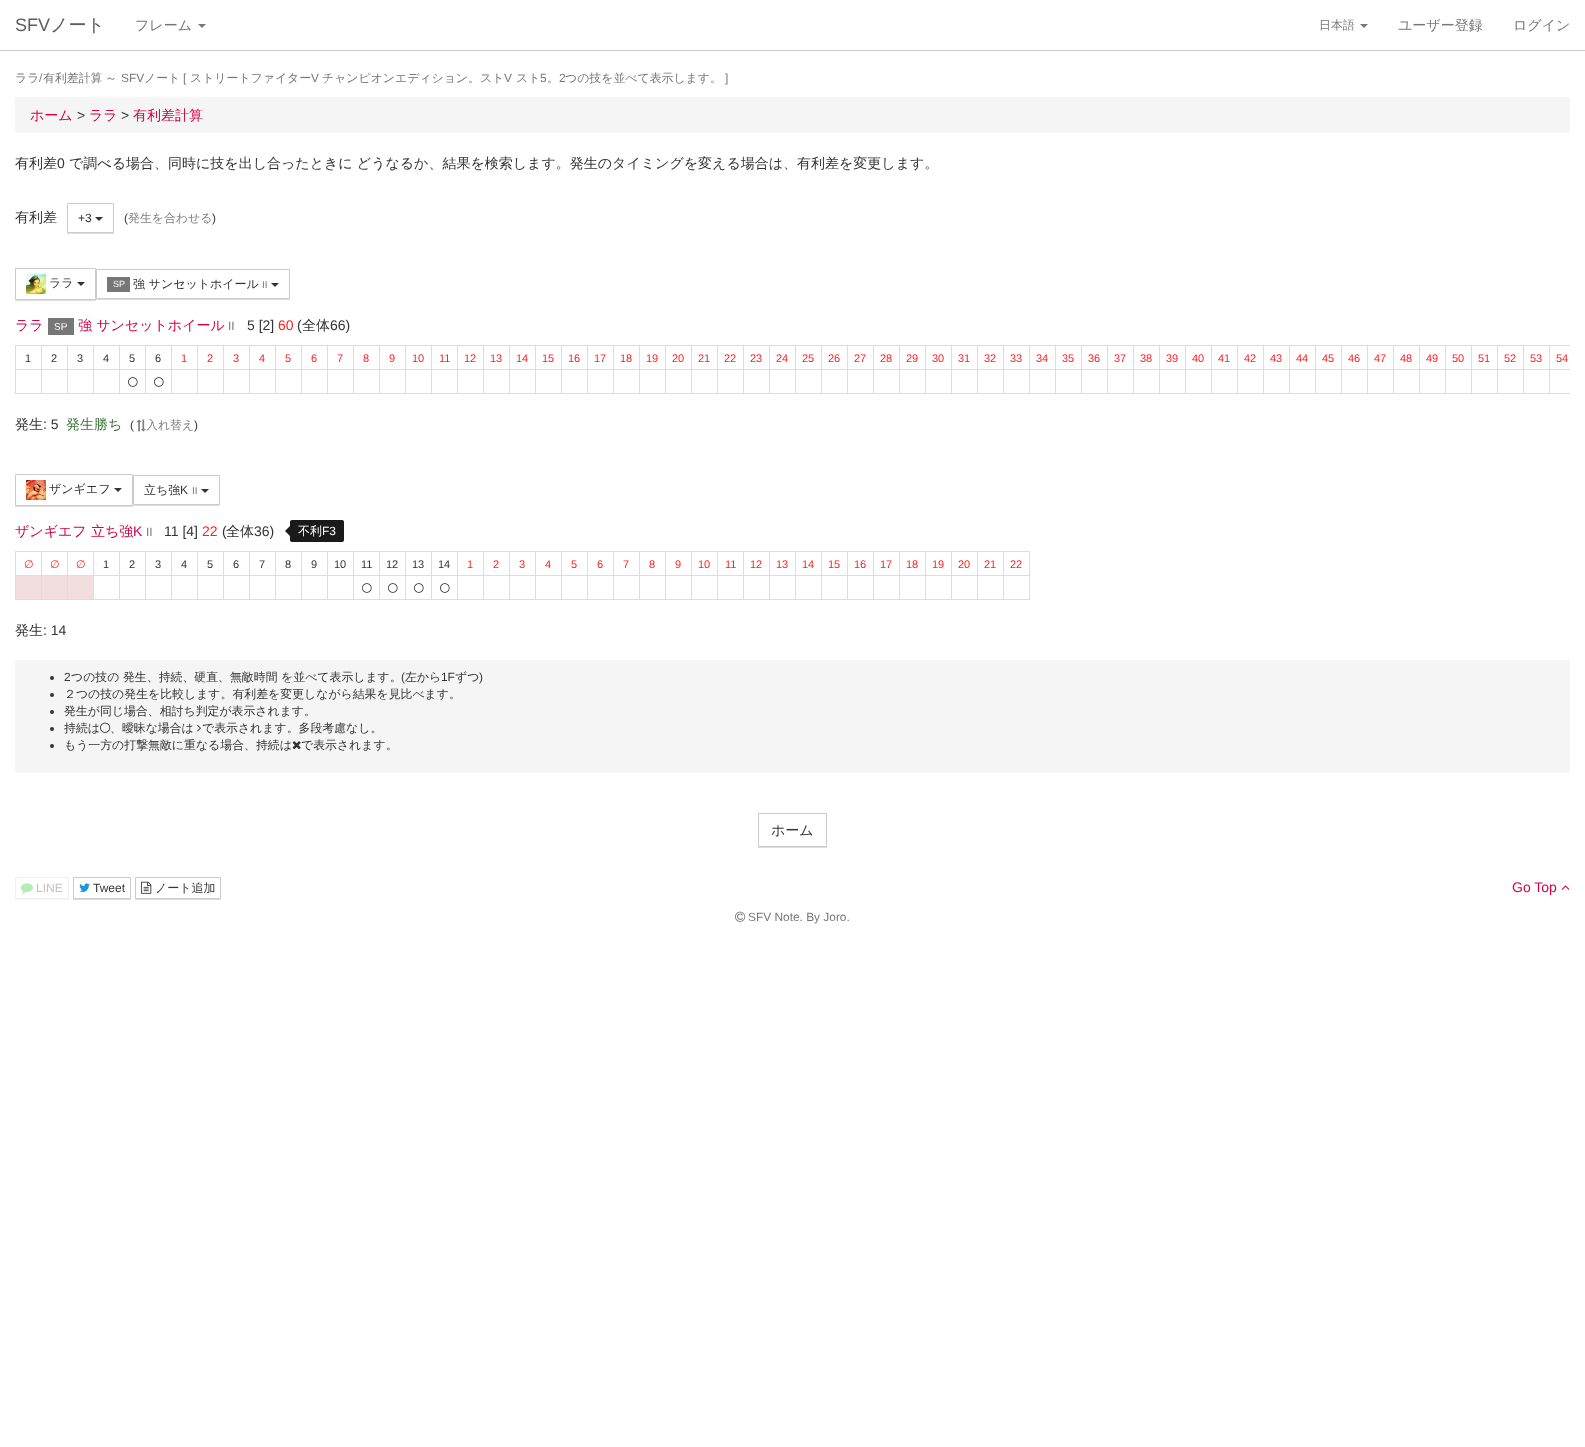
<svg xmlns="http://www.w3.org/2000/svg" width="1585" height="1447">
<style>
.a{font:18px Liberation Sans;fill:#5e5e5e}
.b{font:500 18px WenQuanYi Zen Hei;fill:#5e5e5e}
.c{font:500 14px WenQuanYi Zen Hei;fill:#777}
.d{font:500 11.9px WenQuanYi Zen Hei;fill:#777}
.e{font:11.9px Liberation Sans;fill:#777}
.f{font:500 14px WenQuanYi Zen Hei;fill:#d4004b}
.g{font:14px Liberation Sans;fill:#333}
.h{font:500 14px WenQuanYi Zen Hei;fill:#333}
.i{font:12px Liberation Sans;fill:#333}
.j{font:11.9px Liberation Sans;fill:#333}
.k{font:500 11.9px WenQuanYi Zen Hei;fill:#808080}
.l{font:500 12px WenQuanYi Zen Hei;fill:#333}
.m{font:9px Liberation Sans;fill:#fff}
.n{font:10px Liberation Sans;fill:#777}
.o{font:10px Liberation Sans;fill:#fff}
.p{font:14px Liberation Sans;fill:#ff1e1e}
.q{font:11px Liberation Sans;fill:#333}
.r{font:11px Liberation Sans;fill:#ff1e1e}
.s{font:500 14px WenQuanYi Zen Hei;fill:#3c763d}
.t{font:14px Liberation Sans;fill:#d4004b}
.u{font:500 12px WenQuanYi Zen Hei;fill:#fff}
.v{font:12px Liberation Sans;fill:#fff}
.w{font:11px DejaVu Sans;fill:#ff1e1e}
.x{font:500 11.9px WenQuanYi Zen Hei;fill:#333}
.y{font:12px Liberation Sans;fill:#c2c2c2}
</style>
<rect width="100%" height="100%" fill="#fff"/>
<path fill="#ccc" d="M0 50h1585v1H0z"/>
<path fill="#777" d="M198 24h8l-4 4z"/>
<path fill="#777" d="M1360 24h8l-4 4z"/>
<rect fill="#f5f5f5" x="15" y="97" width="1555" height="36" rx="2"/>
<path fill="#ddd" d="M67 233h47v1H67z"/>
<path fill="none" stroke="#ccc" d="M67.5 203.5h46v29H67.5z"/>
<path fill="#333" d="M95 217h8l-4 4z"/>
<path fill="#ddd" d="M15 300h81v1H15z"/>
<path fill="none" stroke="#ccc" d="M15.5 268.5h80v31H15.5z"/>
<image href="1.png" x="26" y="274" width="20" height="20"/>
<path fill="#333" d="M77 282h8l-4 4z"/>
<path fill="#ddd" d="M96 299h194v1H96z"/>
<path fill="none" stroke="#ccc" d="M96.5 269.5h193v29H96.5z"/>
<path fill="#777" d="M107 277h23v15H107z"/>
<path fill="#333" d="M271 283h8l-4 4z"/>
<path fill="#777" d="M48 318h26v17H48z"/>
<path fill="#ddd" d="M15 345h1555v1H15z"/>
<path fill="#ddd" d="M15 393h1555v1H15z"/>
<path fill="#ddd" d="M15 345h1v49H15z"/>
<path fill="#ddd" d="M1549 369h21v1H1549z"/>
<path fill="#ddd" d="M1549 369h1v25H1549z"/>
<path fill="#ddd" d="M1523 369h27v1H1523z"/>
<path fill="#ddd" d="M1523 369h1v25H1523z"/>
<path fill="#ddd" d="M1497 369h27v1H1497z"/>
<path fill="#ddd" d="M1497 369h1v25H1497z"/>
<path fill="#ddd" d="M1471 369h27v1H1471z"/>
<path fill="#ddd" d="M1471 369h1v25H1471z"/>
<path fill="#ddd" d="M1445 369h27v1H1445z"/>
<path fill="#ddd" d="M1445 369h1v25H1445z"/>
<path fill="#ddd" d="M1419 369h27v1H1419z"/>
<path fill="#ddd" d="M1419 369h1v25H1419z"/>
<path fill="#ddd" d="M1393 369h27v1H1393z"/>
<path fill="#ddd" d="M1393 369h1v25H1393z"/>
<path fill="#ddd" d="M1367 369h27v1H1367z"/>
<path fill="#ddd" d="M1367 369h1v25H1367z"/>
<path fill="#ddd" d="M1341 369h27v1H1341z"/>
<path fill="#ddd" d="M1341 369h1v25H1341z"/>
<path fill="#ddd" d="M1315 369h27v1H1315z"/>
<path fill="#ddd" d="M1315 369h1v25H1315z"/>
<path fill="#ddd" d="M1289 369h27v1H1289z"/>
<path fill="#ddd" d="M1289 369h1v25H1289z"/>
<path fill="#ddd" d="M1263 369h27v1H1263z"/>
<path fill="#ddd" d="M1263 369h1v25H1263z"/>
<path fill="#ddd" d="M1237 369h27v1H1237z"/>
<path fill="#ddd" d="M1237 369h1v25H1237z"/>
<path fill="#ddd" d="M1211 369h27v1H1211z"/>
<path fill="#ddd" d="M1211 369h1v25H1211z"/>
<path fill="#ddd" d="M1185 369h27v1H1185z"/>
<path fill="#ddd" d="M1185 369h1v25H1185z"/>
<path fill="#ddd" d="M1159 369h27v1H1159z"/>
<path fill="#ddd" d="M1159 369h1v25H1159z"/>
<path fill="#ddd" d="M1133 369h27v1H1133z"/>
<path fill="#ddd" d="M1133 369h1v25H1133z"/>
<path fill="#ddd" d="M1107 369h27v1H1107z"/>
<path fill="#ddd" d="M1107 369h1v25H1107z"/>
<path fill="#ddd" d="M1081 369h27v1H1081z"/>
<path fill="#ddd" d="M1081 369h1v25H1081z"/>
<path fill="#ddd" d="M1055 369h27v1H1055z"/>
<path fill="#ddd" d="M1055 369h1v25H1055z"/>
<path fill="#ddd" d="M1029 369h27v1H1029z"/>
<path fill="#ddd" d="M1029 369h1v25H1029z"/>
<path fill="#ddd" d="M1003 369h27v1H1003z"/>
<path fill="#ddd" d="M1003 369h1v25H1003z"/>
<path fill="#ddd" d="M977 369h27v1H977z"/>
<path fill="#ddd" d="M977 369h1v25H977z"/>
<path fill="#ddd" d="M951 369h27v1H951z"/>
<path fill="#ddd" d="M951 369h1v25H951z"/>
<path fill="#ddd" d="M925 369h27v1H925z"/>
<path fill="#ddd" d="M925 369h1v25H925z"/>
<path fill="#ddd" d="M899 369h27v1H899z"/>
<path fill="#ddd" d="M899 369h1v25H899z"/>
<path fill="#ddd" d="M873 369h27v1H873z"/>
<path fill="#ddd" d="M873 369h1v25H873z"/>
<path fill="#ddd" d="M847 369h27v1H847z"/>
<path fill="#ddd" d="M847 369h1v25H847z"/>
<path fill="#ddd" d="M821 369h27v1H821z"/>
<path fill="#ddd" d="M821 369h1v25H821z"/>
<path fill="#ddd" d="M795 369h27v1H795z"/>
<path fill="#ddd" d="M795 369h1v25H795z"/>
<path fill="#ddd" d="M769 369h27v1H769z"/>
<path fill="#ddd" d="M769 369h1v25H769z"/>
<path fill="#ddd" d="M743 369h27v1H743z"/>
<path fill="#ddd" d="M743 369h1v25H743z"/>
<path fill="#ddd" d="M717 369h27v1H717z"/>
<path fill="#ddd" d="M717 369h1v25H717z"/>
<path fill="#ddd" d="M691 369h27v1H691z"/>
<path fill="#ddd" d="M691 369h1v25H691z"/>
<path fill="#ddd" d="M665 369h27v1H665z"/>
<path fill="#ddd" d="M665 369h1v25H665z"/>
<path fill="#ddd" d="M639 369h27v1H639z"/>
<path fill="#ddd" d="M639 369h1v25H639z"/>
<path fill="#ddd" d="M613 369h27v1H613z"/>
<path fill="#ddd" d="M613 369h1v25H613z"/>
<path fill="#ddd" d="M587 369h27v1H587z"/>
<path fill="#ddd" d="M587 369h1v25H587z"/>
<path fill="#ddd" d="M561 369h27v1H561z"/>
<path fill="#ddd" d="M561 369h1v25H561z"/>
<path fill="#ddd" d="M535 369h27v1H535z"/>
<path fill="#ddd" d="M535 369h1v25H535z"/>
<path fill="#ddd" d="M509 369h27v1H509z"/>
<path fill="#ddd" d="M509 369h1v25H509z"/>
<path fill="#ddd" d="M483 369h27v1H483z"/>
<path fill="#ddd" d="M483 369h1v25H483z"/>
<path fill="#ddd" d="M457 369h27v1H457z"/>
<path fill="#ddd" d="M457 369h1v25H457z"/>
<path fill="#ddd" d="M431 369h27v1H431z"/>
<path fill="#ddd" d="M431 369h1v25H431z"/>
<path fill="#ddd" d="M405 369h27v1H405z"/>
<path fill="#ddd" d="M405 369h1v25H405z"/>
<path fill="#ddd" d="M379 369h27v1H379z"/>
<path fill="#ddd" d="M379 369h1v25H379z"/>
<path fill="#ddd" d="M353 369h27v1H353z"/>
<path fill="#ddd" d="M353 369h1v25H353z"/>
<path fill="#ddd" d="M327 369h27v1H327z"/>
<path fill="#ddd" d="M327 369h1v25H327z"/>
<path fill="#ddd" d="M301 369h27v1H301z"/>
<path fill="#ddd" d="M301 369h1v25H301z"/>
<path fill="#ddd" d="M275 369h27v1H275z"/>
<path fill="#ddd" d="M275 369h1v25H275z"/>
<path fill="#ddd" d="M249 369h27v1H249z"/>
<path fill="#ddd" d="M249 369h1v25H249z"/>
<path fill="#ddd" d="M223 369h27v1H223z"/>
<path fill="#ddd" d="M223 369h1v25H223z"/>
<path fill="#ddd" d="M197 369h27v1H197z"/>
<path fill="#ddd" d="M197 369h1v25H197z"/>
<path fill="#ddd" d="M171 369h27v1H171z"/>
<path fill="#ddd" d="M171 369h1v25H171z"/>
<path fill="#ddd" d="M145 369h27v1H145z"/>
<path fill="#ddd" d="M145 369h1v25H145z"/>
<path fill="#ddd" d="M119 369h27v1H119z"/>
<path fill="#ddd" d="M119 369h1v25H119z"/>
<path fill="#ddd" d="M93 369h27v1H93z"/>
<path fill="#ddd" d="M93 369h1v25H93z"/>
<path fill="#ddd" d="M67 369h27v1H67z"/>
<path fill="#ddd" d="M67 369h1v25H67z"/>
<path fill="#ddd" d="M41 369h27v1H41z"/>
<path fill="#ddd" d="M41 369h1v25H41z"/>
<path fill="#ddd" d="M15 369h27v1H15z"/>
<path fill="#ddd" d="M41 345h1v25H41z"/>
<path fill="#ddd" d="M67 345h1v25H67z"/>
<path fill="#ddd" d="M93 345h1v25H93z"/>
<path fill="#ddd" d="M119 345h1v25H119z"/>
<path fill="#ddd" d="M145 345h1v25H145z"/>
<path fill="#ddd" d="M171 345h1v25H171z"/>
<path fill="#ddd" d="M197 345h1v25H197z"/>
<path fill="#ddd" d="M223 345h1v25H223z"/>
<path fill="#ddd" d="M249 345h1v25H249z"/>
<path fill="#ddd" d="M275 345h1v25H275z"/>
<path fill="#ddd" d="M301 345h1v25H301z"/>
<path fill="#ddd" d="M327 345h1v25H327z"/>
<path fill="#ddd" d="M353 345h1v25H353z"/>
<path fill="#ddd" d="M379 345h1v25H379z"/>
<path fill="#ddd" d="M405 345h1v25H405z"/>
<path fill="#ddd" d="M431 345h1v25H431z"/>
<path fill="#ddd" d="M457 345h1v25H457z"/>
<path fill="#ddd" d="M483 345h1v25H483z"/>
<path fill="#ddd" d="M509 345h1v25H509z"/>
<path fill="#ddd" d="M535 345h1v25H535z"/>
<path fill="#ddd" d="M561 345h1v25H561z"/>
<path fill="#ddd" d="M587 345h1v25H587z"/>
<path fill="#ddd" d="M613 345h1v25H613z"/>
<path fill="#ddd" d="M639 345h1v25H639z"/>
<path fill="#ddd" d="M665 345h1v25H665z"/>
<path fill="#ddd" d="M691 345h1v25H691z"/>
<path fill="#ddd" d="M717 345h1v25H717z"/>
<path fill="#ddd" d="M743 345h1v25H743z"/>
<path fill="#ddd" d="M769 345h1v25H769z"/>
<path fill="#ddd" d="M795 345h1v25H795z"/>
<path fill="#ddd" d="M821 345h1v25H821z"/>
<path fill="#ddd" d="M847 345h1v25H847z"/>
<path fill="#ddd" d="M873 345h1v25H873z"/>
<path fill="#ddd" d="M899 345h1v25H899z"/>
<path fill="#ddd" d="M925 345h1v25H925z"/>
<path fill="#ddd" d="M951 345h1v25H951z"/>
<path fill="#ddd" d="M977 345h1v25H977z"/>
<path fill="#ddd" d="M1003 345h1v25H1003z"/>
<path fill="#ddd" d="M1029 345h1v25H1029z"/>
<path fill="#ddd" d="M1055 345h1v25H1055z"/>
<path fill="#ddd" d="M1081 345h1v25H1081z"/>
<path fill="#ddd" d="M1107 345h1v25H1107z"/>
<path fill="#ddd" d="M1133 345h1v25H1133z"/>
<path fill="#ddd" d="M1159 345h1v25H1159z"/>
<path fill="#ddd" d="M1185 345h1v25H1185z"/>
<path fill="#ddd" d="M1211 345h1v25H1211z"/>
<path fill="#ddd" d="M1237 345h1v25H1237z"/>
<path fill="#ddd" d="M1263 345h1v25H1263z"/>
<path fill="#ddd" d="M1289 345h1v25H1289z"/>
<path fill="#ddd" d="M1315 345h1v25H1315z"/>
<path fill="#ddd" d="M1341 345h1v25H1341z"/>
<path fill="#ddd" d="M1367 345h1v25H1367z"/>
<path fill="#ddd" d="M1393 345h1v25H1393z"/>
<path fill="#ddd" d="M1419 345h1v25H1419z"/>
<path fill="#ddd" d="M1445 345h1v25H1445z"/>
<path fill="#ddd" d="M1471 345h1v25H1471z"/>
<path fill="#ddd" d="M1497 345h1v25H1497z"/>
<path fill="#ddd" d="M1523 345h1v25H1523z"/>
<path fill="#ddd" d="M1549 345h1v25H1549z"/>
<image href="2.png" x="128" y="377" width="10" height="10"/>
<image href="2.png" x="154" y="377" width="10" height="10"/>
<image href="3.png" x="136" y="419" width="10" height="13"/>
<path fill="#ddd" d="M15 506h118v1H15z"/>
<path fill="none" stroke="#ccc" d="M15.5 474.5h117v31H15.5z"/>
<image href="4.png" x="26" y="480" width="20" height="20"/>
<path fill="#333" d="M114 488h8l-4 4z"/>
<path fill="#ddd" d="M133 505h87v1H133z"/>
<path fill="none" stroke="#ccc" d="M133.5 475.5h86v29H133.5z"/>
<path fill="#333" d="M201 489h8l-4 4z"/>
<path fill="#1a1a1a" d="M290 526v10l-5-5z"/>
<rect fill="#1a1a1a" x="290" y="520" width="54" height="22" rx="2"/>
<path fill="#ddd" d="M15 551h1015v1H15z"/>
<path fill="#ddd" d="M1029 551h1v49H1029z"/>
<path fill="#ddd" d="M15 599h1015v1H15z"/>
<path fill="#ddd" d="M15 551h1v49H15z"/>
<path fill="#ddd" d="M1003 575h27v1H1003z"/>
<path fill="#ddd" d="M1003 575h1v25H1003z"/>
<path fill="#ddd" d="M977 575h27v1H977z"/>
<path fill="#ddd" d="M977 575h1v25H977z"/>
<path fill="#ddd" d="M951 575h27v1H951z"/>
<path fill="#ddd" d="M951 575h1v25H951z"/>
<path fill="#ddd" d="M925 575h27v1H925z"/>
<path fill="#ddd" d="M925 575h1v25H925z"/>
<path fill="#ddd" d="M899 575h27v1H899z"/>
<path fill="#ddd" d="M899 575h1v25H899z"/>
<path fill="#ddd" d="M873 575h27v1H873z"/>
<path fill="#ddd" d="M873 575h1v25H873z"/>
<path fill="#ddd" d="M847 575h27v1H847z"/>
<path fill="#ddd" d="M847 575h1v25H847z"/>
<path fill="#ddd" d="M821 575h27v1H821z"/>
<path fill="#ddd" d="M821 575h1v25H821z"/>
<path fill="#ddd" d="M795 575h27v1H795z"/>
<path fill="#ddd" d="M795 575h1v25H795z"/>
<path fill="#ddd" d="M769 575h27v1H769z"/>
<path fill="#ddd" d="M769 575h1v25H769z"/>
<path fill="#ddd" d="M743 575h27v1H743z"/>
<path fill="#ddd" d="M743 575h1v25H743z"/>
<path fill="#ddd" d="M717 575h27v1H717z"/>
<path fill="#ddd" d="M717 575h1v25H717z"/>
<path fill="#ddd" d="M691 575h27v1H691z"/>
<path fill="#ddd" d="M691 575h1v25H691z"/>
<path fill="#ddd" d="M665 575h27v1H665z"/>
<path fill="#ddd" d="M665 575h1v25H665z"/>
<path fill="#ddd" d="M639 575h27v1H639z"/>
<path fill="#ddd" d="M639 575h1v25H639z"/>
<path fill="#ddd" d="M613 575h27v1H613z"/>
<path fill="#ddd" d="M613 575h1v25H613z"/>
<path fill="#ddd" d="M587 575h27v1H587z"/>
<path fill="#ddd" d="M587 575h1v25H587z"/>
<path fill="#ddd" d="M561 575h27v1H561z"/>
<path fill="#ddd" d="M561 575h1v25H561z"/>
<path fill="#ddd" d="M535 575h27v1H535z"/>
<path fill="#ddd" d="M535 575h1v25H535z"/>
<path fill="#ddd" d="M509 575h27v1H509z"/>
<path fill="#ddd" d="M509 575h1v25H509z"/>
<path fill="#ddd" d="M483 575h27v1H483z"/>
<path fill="#ddd" d="M483 575h1v25H483z"/>
<path fill="#ddd" d="M457 575h27v1H457z"/>
<path fill="#ddd" d="M457 575h1v25H457z"/>
<path fill="#ddd" d="M431 575h27v1H431z"/>
<path fill="#ddd" d="M431 575h1v25H431z"/>
<path fill="#ddd" d="M405 575h27v1H405z"/>
<path fill="#ddd" d="M405 575h1v25H405z"/>
<path fill="#ddd" d="M379 575h27v1H379z"/>
<path fill="#ddd" d="M379 575h1v25H379z"/>
<path fill="#ddd" d="M353 575h27v1H353z"/>
<path fill="#ddd" d="M353 575h1v25H353z"/>
<path fill="#ddd" d="M327 575h27v1H327z"/>
<path fill="#ddd" d="M327 575h1v25H327z"/>
<path fill="#ddd" d="M301 575h27v1H301z"/>
<path fill="#ddd" d="M301 575h1v25H301z"/>
<path fill="#ddd" d="M275 575h27v1H275z"/>
<path fill="#ddd" d="M275 575h1v25H275z"/>
<path fill="#ddd" d="M249 575h27v1H249z"/>
<path fill="#ddd" d="M249 575h1v25H249z"/>
<path fill="#ddd" d="M223 575h27v1H223z"/>
<path fill="#ddd" d="M223 575h1v25H223z"/>
<path fill="#ddd" d="M197 575h27v1H197z"/>
<path fill="#ddd" d="M197 575h1v25H197z"/>
<path fill="#ddd" d="M171 575h27v1H171z"/>
<path fill="#ddd" d="M171 575h1v25H171z"/>
<path fill="#ddd" d="M145 575h27v1H145z"/>
<path fill="#ddd" d="M145 575h1v25H145z"/>
<path fill="#ddd" d="M119 575h27v1H119z"/>
<path fill="#ddd" d="M119 575h1v25H119z"/>
<path fill="#ddd" d="M93 575h27v1H93z"/>
<path fill="#ddd" d="M93 575h1v25H93z"/>
<path fill="#ddd" d="M67 575h27v1H67z"/>
<path fill="#ddd" d="M67 575h1v25H67z"/>
<path fill="#ddd" d="M41 575h27v1H41z"/>
<path fill="#ddd" d="M41 575h1v25H41z"/>
<path fill="#ddd" d="M15 575h27v1H15z"/>
<path fill="#ddd" d="M41 551h1v25H41z"/>
<path fill="#ddd" d="M67 551h1v25H67z"/>
<path fill="#ddd" d="M93 551h1v25H93z"/>
<path fill="#ddd" d="M119 551h1v25H119z"/>
<path fill="#ddd" d="M145 551h1v25H145z"/>
<path fill="#ddd" d="M171 551h1v25H171z"/>
<path fill="#ddd" d="M197 551h1v25H197z"/>
<path fill="#ddd" d="M223 551h1v25H223z"/>
<path fill="#ddd" d="M249 551h1v25H249z"/>
<path fill="#ddd" d="M275 551h1v25H275z"/>
<path fill="#ddd" d="M301 551h1v25H301z"/>
<path fill="#ddd" d="M327 551h1v25H327z"/>
<path fill="#ddd" d="M353 551h1v25H353z"/>
<path fill="#ddd" d="M379 551h1v25H379z"/>
<path fill="#ddd" d="M405 551h1v25H405z"/>
<path fill="#ddd" d="M431 551h1v25H431z"/>
<path fill="#ddd" d="M457 551h1v25H457z"/>
<path fill="#ddd" d="M483 551h1v25H483z"/>
<path fill="#ddd" d="M509 551h1v25H509z"/>
<path fill="#ddd" d="M535 551h1v25H535z"/>
<path fill="#ddd" d="M561 551h1v25H561z"/>
<path fill="#ddd" d="M587 551h1v25H587z"/>
<path fill="#ddd" d="M613 551h1v25H613z"/>
<path fill="#ddd" d="M639 551h1v25H639z"/>
<path fill="#ddd" d="M665 551h1v25H665z"/>
<path fill="#ddd" d="M691 551h1v25H691z"/>
<path fill="#ddd" d="M717 551h1v25H717z"/>
<path fill="#ddd" d="M743 551h1v25H743z"/>
<path fill="#ddd" d="M769 551h1v25H769z"/>
<path fill="#ddd" d="M795 551h1v25H795z"/>
<path fill="#ddd" d="M821 551h1v25H821z"/>
<path fill="#ddd" d="M847 551h1v25H847z"/>
<path fill="#ddd" d="M873 551h1v25H873z"/>
<path fill="#ddd" d="M899 551h1v25H899z"/>
<path fill="#ddd" d="M925 551h1v25H925z"/>
<path fill="#ddd" d="M951 551h1v25H951z"/>
<path fill="#ddd" d="M977 551h1v25H977z"/>
<path fill="#ddd" d="M1003 551h1v25H1003z"/>
<path fill="#f2dede" d="M16 576h25v23H16z"/>
<path fill="#f2dede" d="M42 576h25v23H42z"/>
<path fill="#f2dede" d="M68 576h25v23H68z"/>
<image href="2.png" x="362" y="583" width="10" height="10"/>
<image href="2.png" x="388" y="583" width="10" height="10"/>
<image href="2.png" x="414" y="583" width="10" height="10"/>
<image href="2.png" x="440" y="583" width="10" height="10"/>
<rect fill="#f5f5f5" x="15" y="660" width="1555" height="113" rx="2"/>
<circle fill="#333" cx="52" cy="678" r="2"/>
<circle fill="#333" cx="52" cy="695" r="2"/>
<circle fill="#333" cx="52" cy="712" r="2"/>
<circle fill="#333" cx="52" cy="729" r="2"/>
<image href="5.png" x="100" y="722" width="11" height="11"/>
<image href="6.png" x="197" y="724" width="4" height="8"/>
<circle fill="#333" cx="52" cy="746" r="2"/>
<image href="7.png" x="292" y="741" width="9" height="9"/>
<path fill="#ddd" d="M758 847h69v1H758z"/>
<path fill="none" stroke="#ccc" d="M758.5 813.5h68v33H758.5z"/>
<path fill="#f5f5f5" d="M15 899h54v1H15z"/>
<path fill="none" stroke="#f0f0f0" d="M15.5 877.5h53v21H15.5z"/>
<image href="8.png" x="21" y="883" width="12" height="11"/>
<path fill="#ddd" d="M73 899h58v1H73z"/>
<path fill="none" stroke="#ccc" d="M73.5 877.5h57v21H73.5z"/>
<image href="9.png" x="79" y="883" width="11" height="9"/>
<path fill="#ddd" d="M135 899h86v1H135z"/>
<path fill="none" stroke="#ccc" d="M135.5 877.5h85v21H135.5z"/>
<image href="10.png" x="141" y="881" width="11" height="13"/>
<image href="11.png" x="1561" y="885" width="9" height="5"/>
<image href="12.png" x="735" y="911" width="11" height="11"/>
<text class="a" x="15" y="31">SFV</text>
<text class="b" x="50" y="31">ノート</text>
<text class="c" x="135" y="30">フレーム</text>
<text class="d" x="1319" y="29">日本語</text>
<text class="c" x="1398" y="30">ユーザー登録</text>
<text class="c" x="1513" y="30">ログイン</text>
<text class="d" x="15" y="82">ララ</text>
<text class="e" x="39" y="82">/</text>
<text class="d" x="43" y="82">有利差計算</text>
<text class="d" x="105" y="82">～</text>
<text class="e" x="121" y="82">SFV</text>
<text class="d" x="144" y="82">ノート</text>
<text class="e" x="183" y="82">[</text>
<text class="d" x="190" y="82">ストリートファイター</text>
<text class="e" x="311" y="82">V</text>
<text class="d" x="322" y="82">チャンピオンエディション。スト</text>
<text class="e" x="504" y="82">V</text>
<text class="d" x="516" y="82">スト</text>
<text class="e" x="540" y="82">5</text>
<text class="e" x="559" y="82">2</text>
<text class="d" x="565" y="82">つの技を並べて表示します。</text>
<text class="e" x="725" y="82">]</text>
<text class="d" x="547" y="82">。</text>
<text class="f" x="30" y="120">ホーム</text>
<text class="g" x="77" y="120">&gt;</text>
<text class="f" x="89" y="120">ララ</text>
<text class="g" x="121" y="120">&gt;</text>
<text class="f" x="133" y="120">有利差計算</text>
<text class="h" x="15" y="168">有利差</text>
<text class="g" x="57" y="168">0</text>
<text class="h" x="69" y="168">で調べる場合、同時に技を出し合ったときに どうなるか、結果を検索します。発生のタイミングを変える場合は、有利差を変更します。</text>
<text class="h" x="15" y="222">有利差</text>
<text class="i" x="78" y="222">+3</text>
<text class="j" x="124" y="222">(</text>
<text class="k" x="128" y="222">発生を合わせる</text>
<text class="j" x="212" y="222">)</text>
<text class="l" x="49" y="287">ララ</text>
<text class="m" x="113" y="287">SP</text>
<text class="l" x="133" y="288">強 サンセットホイール</text>
<text class="n" x="262" y="288">II</text>
<text class="f" x="15" y="330">ララ</text>
<text class="o" x="54" y="330">SP</text>
<text class="f" x="78" y="330">強 サンセットホイール</text>
<text class="e" x="228" y="330">II</text>
<text class="g" x="247" y="330">5 [2]</text>
<text class="p" x="278" y="330">60</text>
<text class="g" x="297" y="330">(</text>
<text class="h" x="302" y="330">全体</text>
<text class="g" x="330" y="330">66)</text>
<text class="q" x="25" y="362">1</text>
<text class="q" x="51" y="362">2</text>
<text class="q" x="77" y="362">3</text>
<text class="q" x="103" y="362">4</text>
<text class="q" x="129" y="362">5</text>
<text class="q" x="155" y="362">6</text>
<text class="r" x="181" y="362">1</text>
<text class="r" x="207" y="362">2</text>
<text class="r" x="233" y="362">3</text>
<text class="r" x="259" y="362">4</text>
<text class="r" x="285" y="362">5</text>
<text class="r" x="311" y="362">6</text>
<text class="r" x="337" y="362">7</text>
<text class="r" x="363" y="362">8</text>
<text class="r" x="389" y="362">9</text>
<text class="r" x="412" y="362">10</text>
<text class="r" x="439" y="362">11</text>
<text class="r" x="464" y="362">12</text>
<text class="r" x="490" y="362">13</text>
<text class="r" x="516" y="362">14</text>
<text class="r" x="542" y="362">15</text>
<text class="r" x="568" y="362">16</text>
<text class="r" x="594" y="362">17</text>
<text class="r" x="620" y="362">18</text>
<text class="r" x="646" y="362">19</text>
<text class="r" x="672" y="362">20</text>
<text class="r" x="698" y="362">21</text>
<text class="r" x="724" y="362">22</text>
<text class="r" x="750" y="362">23</text>
<text class="r" x="776" y="362">24</text>
<text class="r" x="802" y="362">25</text>
<text class="r" x="828" y="362">26</text>
<text class="r" x="854" y="362">27</text>
<text class="r" x="880" y="362">28</text>
<text class="r" x="906" y="362">29</text>
<text class="r" x="932" y="362">30</text>
<text class="r" x="958" y="362">31</text>
<text class="r" x="984" y="362">32</text>
<text class="r" x="1010" y="362">33</text>
<text class="r" x="1036" y="362">34</text>
<text class="r" x="1062" y="362">35</text>
<text class="r" x="1088" y="362">36</text>
<text class="r" x="1114" y="362">37</text>
<text class="r" x="1140" y="362">38</text>
<text class="r" x="1166" y="362">39</text>
<text class="r" x="1192" y="362">40</text>
<text class="r" x="1218" y="362">41</text>
<text class="r" x="1244" y="362">42</text>
<text class="r" x="1270" y="362">43</text>
<text class="r" x="1296" y="362">44</text>
<text class="r" x="1322" y="362">45</text>
<text class="r" x="1348" y="362">46</text>
<text class="r" x="1374" y="362">47</text>
<text class="r" x="1400" y="362">48</text>
<text class="r" x="1426" y="362">49</text>
<text class="r" x="1452" y="362">50</text>
<text class="r" x="1478" y="362">51</text>
<text class="r" x="1504" y="362">52</text>
<text class="r" x="1530" y="362">53</text>
<text class="r" x="1556" y="362">54</text>
<text class="h" x="15" y="429">発生</text>
<text class="g" x="43" y="429">: 5</text>
<text class="s" x="66" y="429">発生勝ち</text>
<text class="j" x="130" y="429">(</text>
<text class="k" x="146" y="429">入れ替え</text>
<text class="j" x="194" y="429">)</text>
<text class="l" x="49" y="493">ザンギエフ</text>
<text class="l" x="144" y="494">立ち強</text>
<text class="i" x="180" y="494">K</text>
<text class="n" x="192" y="494">II</text>
<text class="f" x="15" y="536">ザンギエフ</text>
<text class="f" x="91" y="536">立ち強</text>
<text class="t" x="133" y="536">K</text>
<text class="e" x="146" y="536">II</text>
<text class="g" x="164" y="536">11 [4]</text>
<text class="p" x="202" y="536">22</text>
<text class="g" x="222" y="536">(</text>
<text class="h" x="226" y="536">全体</text>
<text class="g" x="254" y="536">36)</text>
<text class="u" x="298" y="535">不利</text>
<text class="v" x="322" y="535">F3</text>
<text class="w" x="24" y="568">∅</text>
<text class="w" x="50" y="568">∅</text>
<text class="w" x="76" y="568">∅</text>
<text class="q" x="103" y="568">1</text>
<text class="q" x="129" y="568">2</text>
<text class="q" x="155" y="568">3</text>
<text class="q" x="181" y="568">4</text>
<text class="q" x="207" y="568">5</text>
<text class="q" x="233" y="568">6</text>
<text class="q" x="259" y="568">7</text>
<text class="q" x="285" y="568">8</text>
<text class="q" x="311" y="568">9</text>
<text class="q" x="334" y="568">10</text>
<text class="q" x="361" y="568">11</text>
<text class="q" x="386" y="568">12</text>
<text class="q" x="412" y="568">13</text>
<text class="q" x="438" y="568">14</text>
<text class="r" x="467" y="568">1</text>
<text class="r" x="493" y="568">2</text>
<text class="r" x="519" y="568">3</text>
<text class="r" x="545" y="568">4</text>
<text class="r" x="571" y="568">5</text>
<text class="r" x="597" y="568">6</text>
<text class="r" x="623" y="568">7</text>
<text class="r" x="649" y="568">8</text>
<text class="r" x="675" y="568">9</text>
<text class="r" x="698" y="568">10</text>
<text class="r" x="725" y="568">11</text>
<text class="r" x="750" y="568">12</text>
<text class="r" x="776" y="568">13</text>
<text class="r" x="802" y="568">14</text>
<text class="r" x="828" y="568">15</text>
<text class="r" x="854" y="568">16</text>
<text class="r" x="880" y="568">17</text>
<text class="r" x="906" y="568">18</text>
<text class="r" x="932" y="568">19</text>
<text class="r" x="958" y="568">20</text>
<text class="r" x="984" y="568">21</text>
<text class="r" x="1010" y="568">22</text>
<text class="h" x="15" y="635">発生</text>
<text class="g" x="43" y="635">: 14</text>
<text class="j" x="64" y="681">2</text>
<text class="x" x="71" y="681">つの技の 発生、持続、硬直、無敵時間 を並べて表示します。</text>
<text class="j" x="401" y="681">(</text>
<text class="x" x="405" y="681">左から</text>
<text class="j" x="441" y="681">1F</text>
<text class="x" x="455" y="681">ずつ</text>
<text class="j" x="479" y="681">)</text>
<text class="x" x="64" y="698">２つの技の発生を比較します。有利差を変更しながら結果を見比べます。</text>
<text class="x" x="64" y="715">発生が同じ場合、相討ち判定が表示されます。</text>
<text class="x" x="64" y="732">持続は</text>
<text class="x" x="110" y="732">、曖昧な場合は</text>
<text class="x" x="202" y="732">で表示されます。多段考慮なし。</text>
<text class="x" x="64" y="749">もう一方の打撃無敵に重なる場合、持続は</text>
<text class="x" x="301" y="749">で表示されます。</text>
<text class="h" x="771" y="835">ホーム</text>
<text class="y" x="36" y="892">LINE</text>
<text class="i" x="93" y="892">Tweet</text>
<text class="l" x="155" y="892">ノート追加</text>
<text class="t" x="1512" y="892">Go Top</text>
<text class="e" x="748" y="921">SFV Note. By Joro.</text>
</svg>
